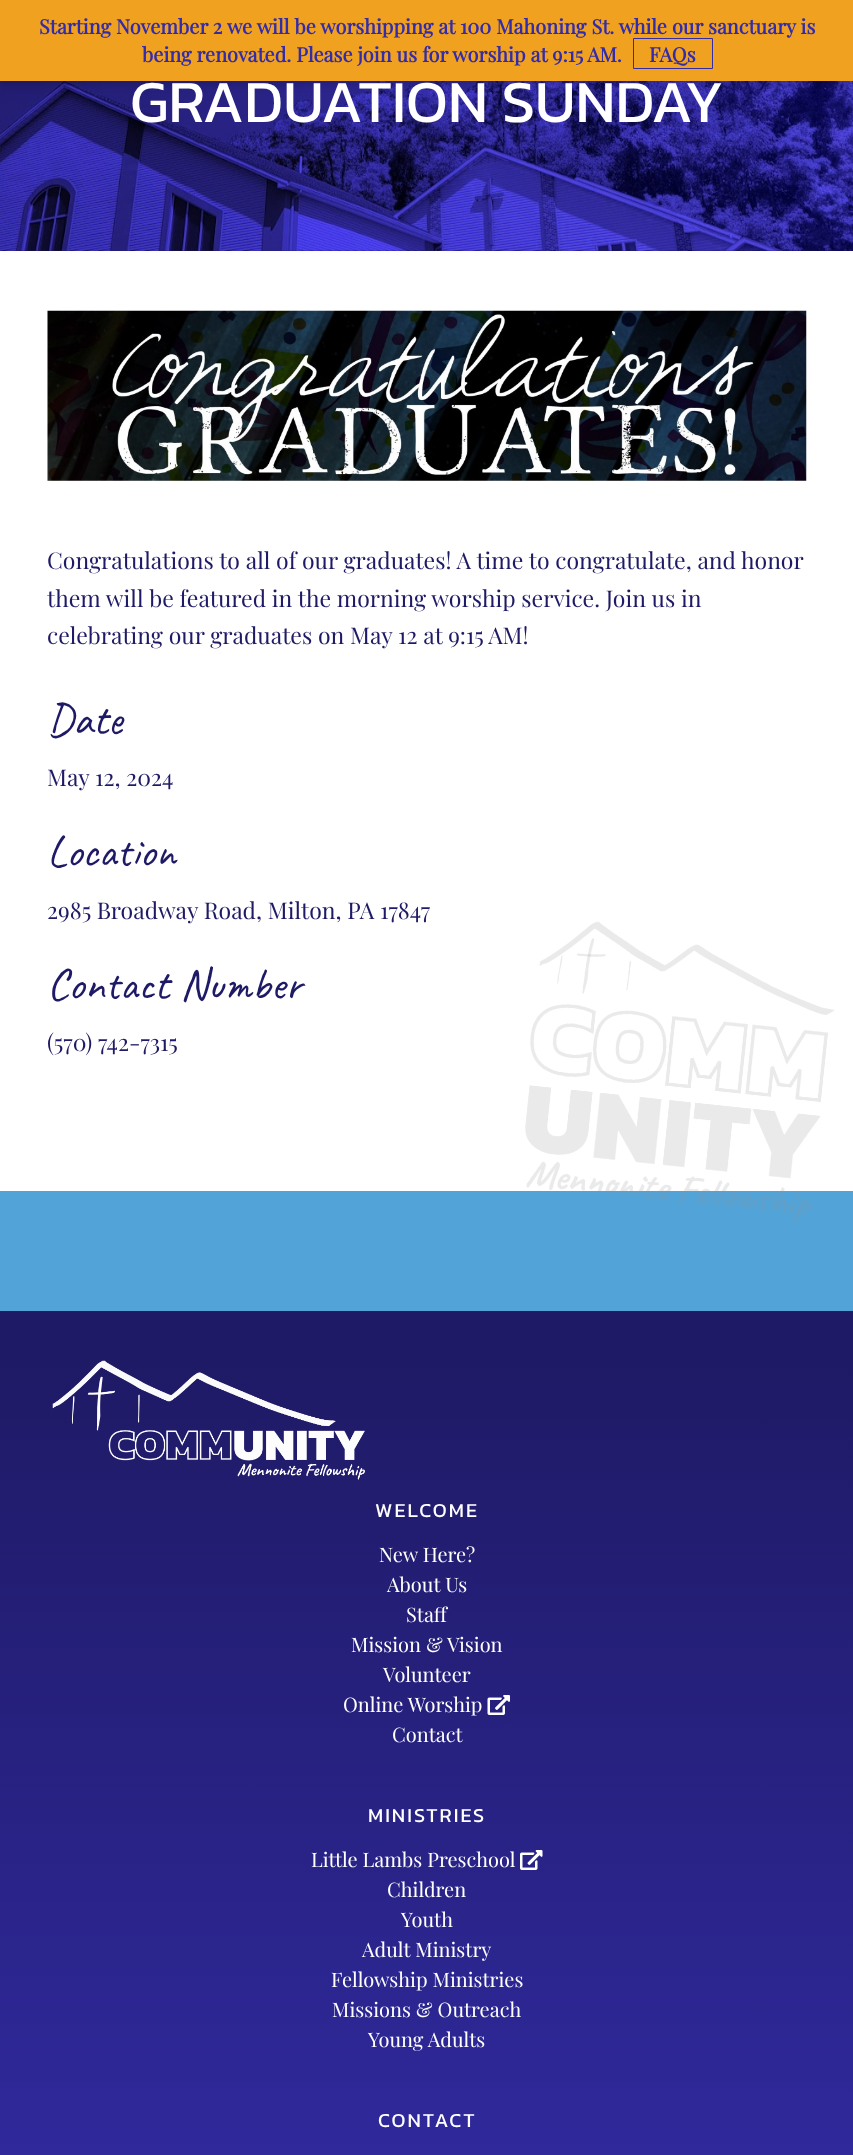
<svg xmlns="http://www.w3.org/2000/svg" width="853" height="2155">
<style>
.a{font:bold 20px Playfair Display;fill:#332ca9}
.b{font:60px Kanit;fill:#fff}
.c{font:23px Playfair Display;fill:#1f1a65}
.d{font:45px Caveat;fill:#1f1a65}
.e{font:20px Kanit;letter-spacing:2px;fill:#fff}
.f{font:20px Playfair Display;fill:#fff}
</style>
<defs>
<linearGradient id="g1" gradientUnits="userSpaceOnUse" x1="427" y1="-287" x2="427" y2="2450"><stop offset="0.6" stop-color="#1f1a65"/><stop offset="1" stop-color="#352eb0"/></linearGradient>
</defs>
<rect width="100%" height="100%" fill="#fff"/>
<path fill="url(#g1)" d="M0 250h853v1905H0z"/>
<image href="1.png" x="0" y="81" width="853" height="170"/>
<path fill="#00000033" filter="blur(4px)" d="M0 3h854v81H0z"/>
<path fill="#f1a120" d="M0 0h853v81H0z"/>
<path fill="none" stroke="#332ca9" d="M633.5 38.5h79v30H633.5z"/>
<path fill="#fff" d="M0 251h853v940H0z"/>
<image href="2.png" x="47" y="310" width="760" height="171"/>
<path fill="#52a3d8" d="M0 1191h853v120H0z"/>
<image href="3.png" x="525" y="921" width="310" height="302"/>
<image href="4.png" x="52" y="1360" width="313" height="120"/>
<image href="5.png" x="487" y="1695" width="23" height="20"/>
<image href="6.png" x="520" y="1850" width="23" height="20"/>
<text class="a" x="39" y="34">Starting November 2 we will be worshipping at 100 Mahoning St. while our sanctuary is</text>
<text class="a" x="142" y="62">being renovated. Please join us for worship at 9:15 AM.</text>
<text class="a" x="649" y="62">FAQs</text>
<text class="b" x="130" y="122">GRADUATION SUNDAY</text>
<text class="c" x="47" y="569">Congratulations to all of our graduates! A time to congratulate, and honor</text>
<text class="c" x="47" y="607">them will be featured in the morning worship service. Join us in</text>
<text class="c" x="47" y="644">celebrating our graduates on May 12 at 9:15 AM!</text>
<text class="d" x="47" y="734">Date</text>
<text class="c" x="47" y="786">May 12, 2024</text>
<text class="d" x="47" y="866">Location</text>
<text class="c" x="47" y="919">2985 Broadway Road, Milton, PA 17847</text>
<text class="d" x="47" y="999">Contact Number</text>
<text class="c" x="47" y="1051">(570) 742-7315</text>
<text class="e" x="375" y="1517">WELCOME</text>
<text class="f" x="379" y="1562">New Here?</text>
<text class="f" x="387" y="1592">About Us</text>
<text class="f" x="406" y="1622">Staff</text>
<text class="f" x="351" y="1652">Mission &amp; Vision</text>
<text class="f" x="383" y="1682">Volunteer</text>
<text class="f" x="343" y="1712">Online Worship</text>
<text class="f" x="392" y="1742">Contact</text>
<text class="e" x="368" y="1822">MINISTRIES</text>
<text class="f" x="311" y="1867">Little Lambs Preschool</text>
<text class="f" x="387" y="1897">Children</text>
<text class="f" x="401" y="1927">Youth</text>
<text class="f" x="362" y="1957">Adult Ministry</text>
<text class="f" x="331" y="1987">Fellowship Ministries</text>
<text class="f" x="332" y="2017">Missions &amp; Outreach</text>
<text class="f" x="368" y="2047">Young Adults</text>
<text class="e" x="378" y="2127">CONTACT</text>
</svg>
